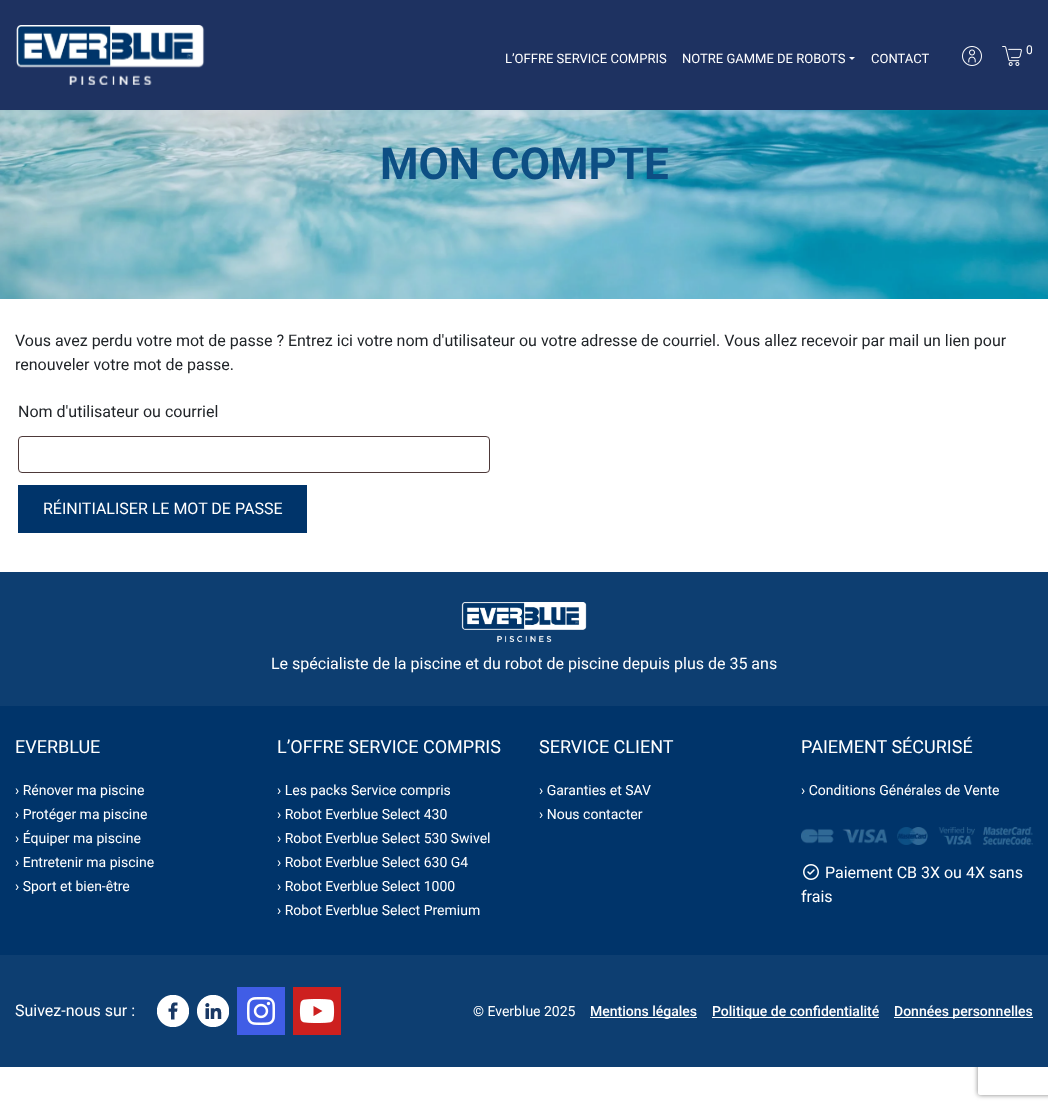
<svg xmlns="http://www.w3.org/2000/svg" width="1048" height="1109">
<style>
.a{font:12px Roboto;fill:#fff}
.b{font:13px Roboto;fill:#fff}
.c{font:bold 44px Roboto;fill:#0d4f84}
.d{font:16px Roboto;fill:#212529}
.e{font:16px Roboto;fill:#fff}
.f{font:18px Roboto;fill:#fff}
.g{font:14px Roboto;fill:#fff}
.h{font:500 14px Roboto;fill:#fff}
</style>
<defs>
<clipPath id="clip1"><path d="M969 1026h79v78h-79zm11 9h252c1 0 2 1 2 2v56c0 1-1 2-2 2h-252c-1 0-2-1-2-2v-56c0-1 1-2 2-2z" clip-rule="evenodd"/></clipPath>
</defs>
<rect width="100%" height="100%" fill="#fff"/>
<path fill="#1e3261" d="M0 0h1048v110H0z"/>
<image href="1.png" x="16" y="25" width="189" height="60"/>
<image href="2.png" x="962" y="46" width="20" height="20"/>
<image href="3.png" x="1002" y="46" width="20" height="20"/>
<path fill="#fff" d="M849 57h6l-3 3z"/>
<image href="4.png" x="0" y="110" width="1048" height="189"/>
<rect fill="none" stroke="#4d3939" x="18.5" y="436.5" width="471" height="36" rx="3.5"/>
<path fill="#00346a" d="M18 485h289v48H18z"/>
<path fill="#0d3e71" d="M0 572h1048v134H0z"/>
<image href="5.png" x="461" y="602" width="126" height="40"/>
<path fill="#00346a" d="M0 706h1048v249H0z"/>
<image href="6.png" x="801" y="827" width="232" height="18"/>
<image href="7.png" x="803" y="864" width="16" height="16"/>
<g clip-path="url(#clip1)">
<rect fill="#808080" filter="blur(2.5px)" x="978" y="1035" width="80" height="60" rx="2"/>
</g>
<path fill="#0d3e71" d="M0 955h1048v112H0z"/>
<image href="8.png" x="157" y="995" width="32" height="32"/>
<image href="9.png" x="197" y="995" width="32" height="32"/>
<path fill="#405de6" d="M237 987h48v48H237z"/>
<image href="10.png" x="247" y="997" width="28" height="28"/>
<path fill="#cd201f" d="M293 987h48v48H293z"/>
<image href="11.png" x="299" y="999" width="36" height="24"/>
<path fill="#fff" d="M590 1017h107v1H590z"/>
<path fill="#fff" d="M712 1017h167v1H712z"/>
<path fill="#fff" d="M894 1017h139v1H894z"/>
<text class="a" x="1026" y="54">0</text>
<text class="b" x="505" y="63">L’OFFRE SERVICE COMPRIS</text>
<text class="b" x="682" y="63">NOTRE GAMME DE ROBOTS</text>
<text class="b" x="871" y="63">CONTACT</text>
<text class="c" x="380" y="179">MON COMPTE</text>
<text class="d" x="15" y="346">Vous avez perdu votre mot de passe ? Entrez ici votre nom d'utilisateur ou votre adresse de courriel. Vous allez recevoir par mail un lien pour</text>
<text class="d" x="15" y="370">renouveler votre mot de passe.</text>
<text class="d" x="18" y="417">Nom d'utilisateur ou courriel</text>
<text class="e" x="43" y="514">RÉINITIALISER LE MOT DE PASSE</text>
<text class="e" x="271" y="669">Le spécialiste de la piscine et du robot de piscine depuis plus de 35 ans</text>
<text class="f" x="15" y="753">EVERBLUE</text>
<text class="g" x="15" y="795">› Rénover ma piscine</text>
<text class="g" x="15" y="819">› Protéger ma piscine</text>
<text class="g" x="15" y="843">› Équiper ma piscine</text>
<text class="g" x="15" y="867">› Entretenir ma piscine</text>
<text class="g" x="15" y="891">› Sport et bien-être</text>
<text class="f" x="277" y="753">L’OFFRE SERVICE COMPRIS</text>
<text class="g" x="277" y="795">› Les packs Service compris</text>
<text class="g" x="277" y="819">› Robot Everblue Select 430</text>
<text class="g" x="277" y="843">› Robot Everblue Select 530 Swivel</text>
<text class="g" x="277" y="867">› Robot Everblue Select 630 G4</text>
<text class="g" x="277" y="891">› Robot Everblue Select 1000</text>
<text class="g" x="277" y="915">› Robot Everblue Select Premium</text>
<text class="f" x="539" y="753">SERVICE CLIENT</text>
<text class="g" x="539" y="795">› Garanties et SAV</text>
<text class="g" x="539" y="819">› Nous contacter</text>
<text class="f" x="801" y="753">PAIEMENT SÉCURISÉ</text>
<text class="g" x="801" y="795">› Conditions Générales de Vente</text>
<text class="e" x="825" y="878">Paiement CB 3X ou 4X sans</text>
<text class="e" x="801" y="902">frais</text>
<text class="e" x="15" y="1016">Suivez-nous sur :</text>
<text class="g" x="473" y="1016">© Everblue 2025</text>
<text class="h" x="590" y="1016">Mentions légales</text>
<text class="h" x="712" y="1016">Politique de confidentialité</text>
<text class="h" x="894" y="1016">Données personnelles</text>
</svg>
